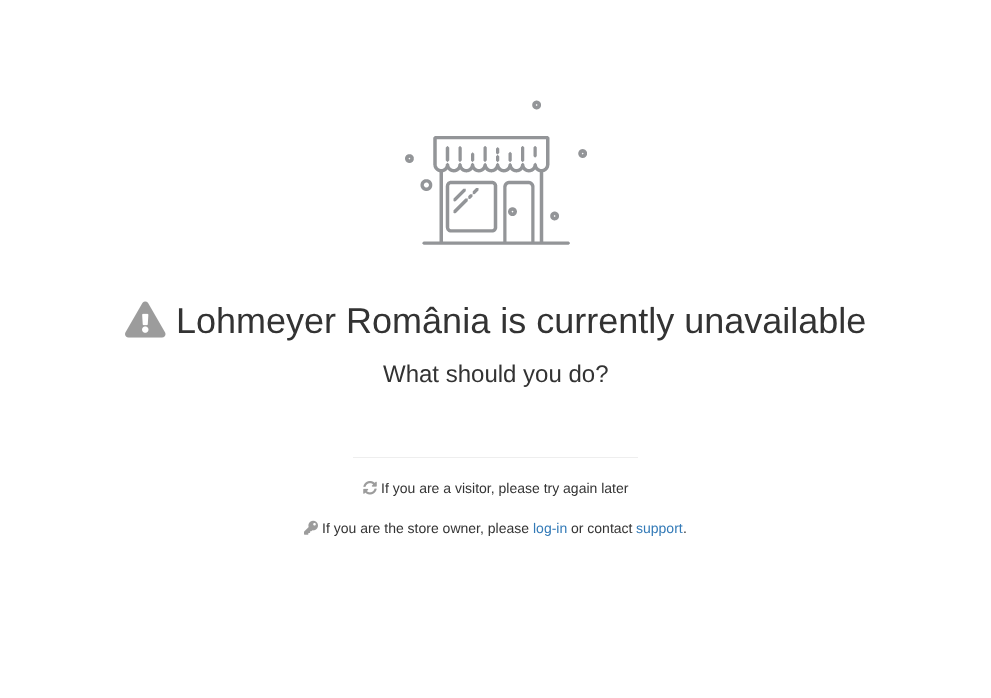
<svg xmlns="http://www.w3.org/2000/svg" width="991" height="698">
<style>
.a{font:36px Liberation Sans;fill:#333}
.b{font:24px Liberation Sans;fill:#333}
.c{font:14px Liberation Sans;fill:#333}
.d{font:14px Liberation Sans;fill:#337ab7}
</style>
<rect width="100%" height="100%" fill="#fff"/>
<image href="1.png" x="405" y="100" width="182" height="145"/>
<image href="2.png" x="125" y="301" width="41" height="37"/>
<path fill="#eee" d="M353 457h285v1H353z"/>
<image href="3.png" x="363" y="481" width="14" height="14"/>
<image href="4.png" x="304" y="520" width="14" height="15"/>
<text class="a" x="176" y="333">Lohmeyer România is currently unavailable</text>
<text class="b" x="383" y="382">What should you do?</text>
<text class="c" x="381" y="493">If you are a visitor, please try again later</text>
<text class="c" x="322" y="533">If you are the store owner, please</text>
<text class="d" x="533" y="533">log-in</text>
<text class="c" x="571" y="533">or contact</text>
<text class="d" x="636" y="533">support</text>
<text class="c" x="683" y="533">.</text>
</svg>
